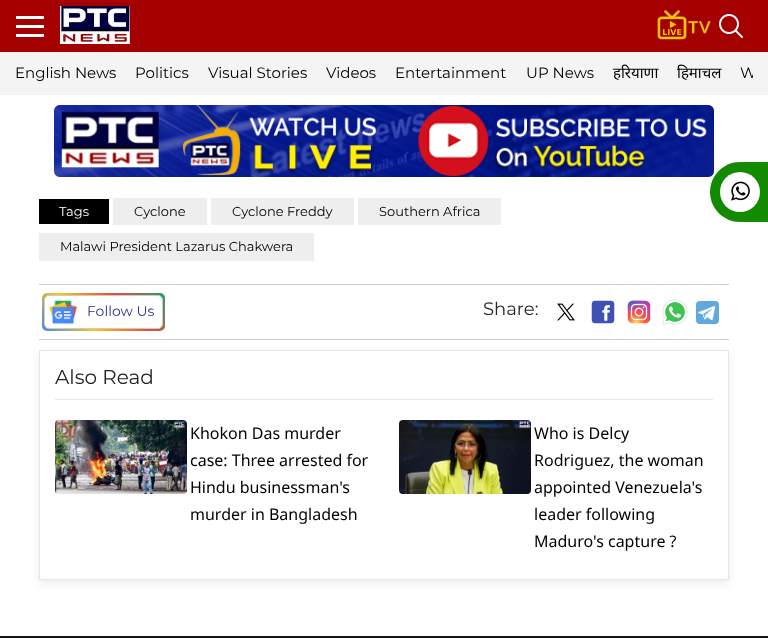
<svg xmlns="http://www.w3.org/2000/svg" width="768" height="638">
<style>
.a{font:15px Montserrat;fill:#000}
.b{font:15px Noto Sans;fill:#000}
.c{font:13px Montserrat;fill:#fff}
.d{font:13px Montserrat;fill:#000}
.e{font:14px Montserrat;fill:#2d3091}
.f{font:18px Montserrat;fill:#212529}
.g{font:20px Montserrat;fill:#212529}
.h{font:16px Noto Sans;fill:#000}
</style>
<defs>
<linearGradient id="g1" gradientUnits="userSpaceOnUse" x1="63" y1="352" x2="144" y2="272"><stop offset="0" stop-color="#4688f3"/><stop offset="0.33" stop-color="#ffc618"/><stop offset="0.67" stop-color="#e94a3e"/><stop offset="1" stop-color="#1da364"/></linearGradient>
<clipPath id="clip1"><path d="M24 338h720v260h-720zm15 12h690v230h-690z" clip-rule="evenodd"/></clipPath>
<clipPath id="clip2"><path d="M15 52h738v43H15z"/></clipPath>
</defs>
<rect width="100%" height="100%" fill="#fff"/>
<path fill="#a40000" d="M0 0h768v52H0z"/>
<path fill="#fff" d="M16 16h28v3H16z"/>
<path fill="#fff" d="M16 25h28v3H16z"/>
<path fill="#fff" d="M16 34h28v3H16z"/>
<image href="1.png" x="60" y="6" width="70" height="38"/>
<image href="2.png" x="657" y="10" width="54" height="30"/>
<image href="3.png" x="719" y="14" width="24" height="24"/>
<path fill="#f4f4f4" d="M0 52h768v43H0z"/>
<image href="5.png" x="54" y="105" width="660" height="72"/>
<path fill="#138b00" d="M740 162h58v60h-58c-16.5 0-30-13.5-30-30c0-16.5 13.5-30 30-30z"/>
<circle fill="#fff" cx="740" cy="192" r="20"/>
<image href="4.png" x="731" y="181" width="19" height="20"/>
<path fill="#000" d="M39 199h70v25H39z"/>
<path fill="#eee" d="M113 198h94v27H113z"/>
<path fill="#eee" d="M211 198h143v27H211z"/>
<path fill="#eee" d="M358 198h143v27H358z"/>
<path fill="#eee" d="M39 233h275v28H39z"/>
<path fill="#ccc" d="M39 284h690v1H39z"/>
<path fill="#ccc" d="M39 339h690v1H39z"/>
<rect fill="url(#g1)" x="42" y="293" width="123" height="38" rx="5"/>
<rect fill="#fff" stroke="#ccc" x="44.5" y="295.5" width="118" height="33" rx="4.5"/>
<image href="6.png" x="49" y="300" width="29" height="25"/>
<image href="7.png" x="557" y="303" width="18" height="18"/>
<image href="8.png" x="591" y="300" width="24" height="24"/>
<image href="9.png" x="627" y="300" width="24" height="24"/>
<image href="10.png" x="662" y="299" width="26" height="26"/>
<image href="11.png" x="696" y="301" width="23" height="23"/>
<g clip-path="url(#clip1)">
<path fill="#00000014" filter="blur(4.5px)" d="M39 353h690v230H39z"/>
</g>
<path fill="none" stroke="#e8e7e7" d="M39.5 350.5h689v229H39.5z"/>
<path fill="#e8e7e7" d="M55 399h658v1H55z"/>
<image href="12.png" x="55" y="420" width="132" height="74"/>
<image href="13.png" x="399" y="420" width="132" height="74"/>
<path fill="#151515" d="M0 636h768v2H0z"/>
<text class="a" x="15" y="78">English News</text>
<text class="a" x="135" y="78">Politics</text>
<text class="a" x="208" y="78">Visual Stories</text>
<text class="a" x="326" y="78">Videos</text>
<text class="a" x="395" y="78">Entertainment</text>
<text class="a" x="526" y="78">UP News</text>
<text class="b" x="613" y="78">हरियाणा</text>
<text class="b" x="677" y="78">हिमाचल</text>
<g clip-path="url(#clip2)">
<text class="a" x="740" y="78">W</text>
</g>
<text class="c" x="59" y="216">Tags</text>
<text class="d" x="134" y="216">Cyclone</text>
<text class="d" x="232" y="216">Cyclone Freddy</text>
<text class="d" x="379" y="216">Southern Africa</text>
<text class="d" x="60" y="251">Malawi President Lazarus Chakwera</text>
<text class="e" x="87" y="316">Follow Us</text>
<text class="f" x="483" y="315">Share:</text>
<text class="g" x="55" y="384">Also Read</text>
<text class="h" x="190" y="439">Khokon Das murder</text>
<text class="h" x="190" y="466">case: Three arrested for</text>
<text class="h" x="190" y="493">Hindu businessman's</text>
<text class="h" x="190" y="520">murder in Bangladesh</text>
<text class="h" x="534" y="439">Who is Delcy</text>
<text class="h" x="534" y="466">Rodriguez, the woman</text>
<text class="h" x="534" y="493">appointed Venezuela's</text>
<text class="h" x="534" y="520">leader following</text>
<text class="h" x="534" y="547">Maduro's capture ?</text>
</svg>
